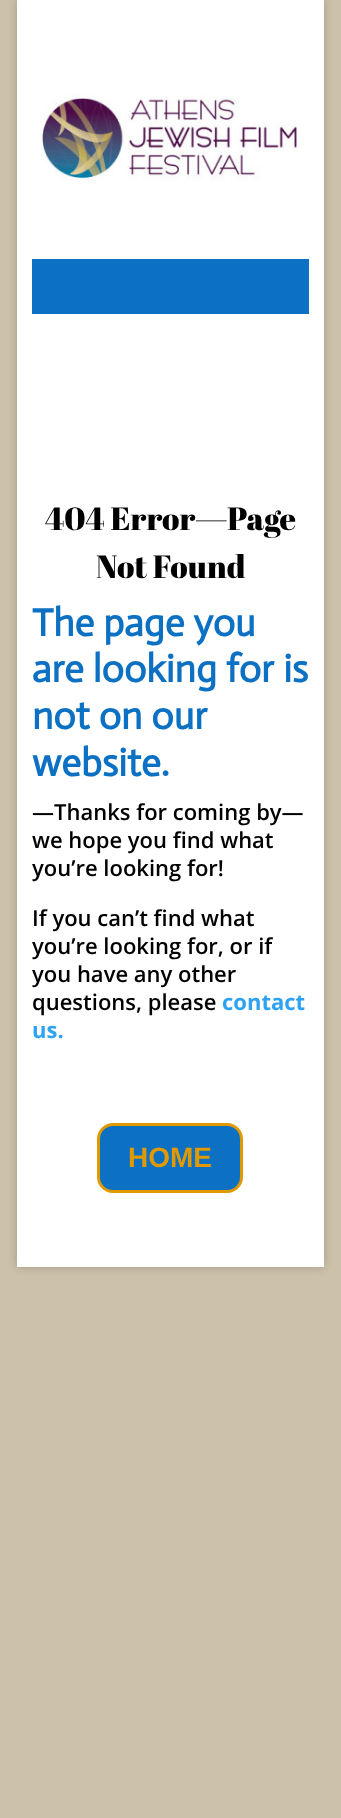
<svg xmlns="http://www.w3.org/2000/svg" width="341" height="1818">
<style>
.a{font:32px Abril Fatface;fill:#000}
.b{font:bold 39px Actor;fill:#0c71c3}
.c{font:600 22px Open Sans;fill:#000}
.d{font:bold 22px Open Sans;fill:#2ea3f2}
.e{font:bold 28px Liberation Sans;fill:#e09900}
</style>
<rect width="100%" height="100%" fill="#ccc1a9"/>
<path fill="#00000033" filter="blur(5px)" d="M17 -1h307v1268H17z"/>
<path fill="#fff" d="M17 0h307v1267H17z"/>
<image href="1.png" x="40" y="93" width="258" height="88"/>
<path fill="#0c71c3" d="M32 259h277v55H32z"/>
<rect fill="#0c71c3" stroke="#e09900" stroke-width="3" x="98.5" y="1124.5" width="143" height="67" rx="14.5"/>
<text class="a" x="45" y="530">404 Error—Page</text>
<text class="a" x="96" y="578">Not Found</text>
<text class="b" x="32" y="636">The page you</text>
<text class="b" x="32" y="682">are looking for is</text>
<text class="b" x="32" y="729">not on our</text>
<text class="b" x="32" y="776">website.</text>
<text class="c" x="32" y="820">—Thanks for coming by—</text>
<text class="c" x="32" y="848">we hope you find what</text>
<text class="c" x="32" y="876">you’re looking for!</text>
<text class="c" x="32" y="926">If you can’t find what</text>
<text class="c" x="32" y="954">you’re looking for, or if</text>
<text class="c" x="32" y="982">you have any other</text>
<text class="c" x="32" y="1010">questions, please</text>
<text class="d" x="222" y="1010">contact</text>
<text class="d" x="32" y="1038">us.</text>
<text class="e" x="128" y="1167">HOME</text>
</svg>
